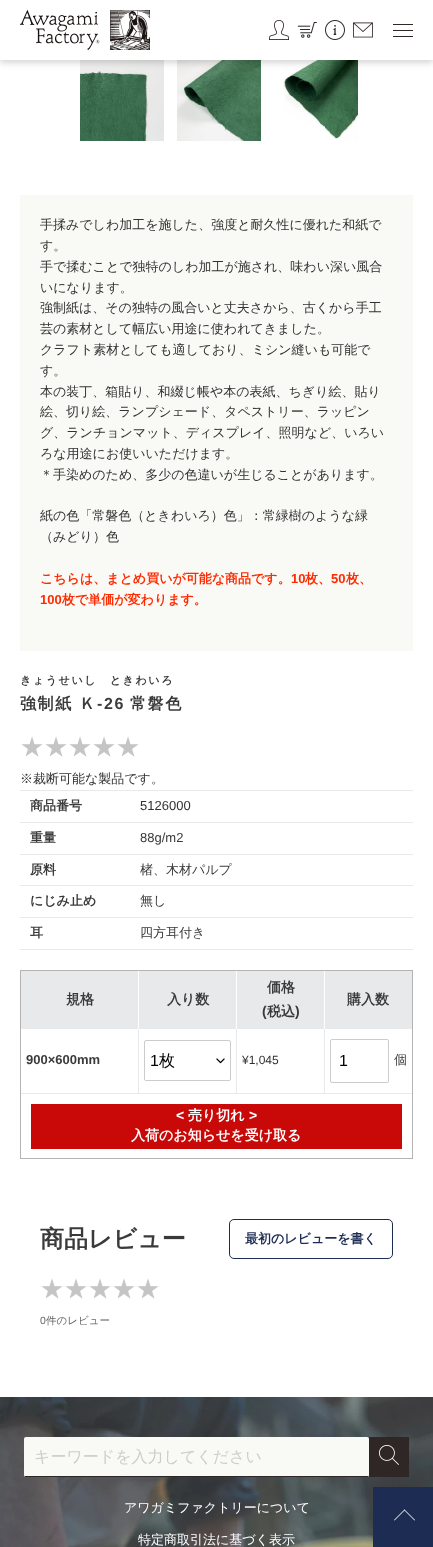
<svg xmlns="http://www.w3.org/2000/svg" width="433" height="1547">
<style>
.a{font:500 13px WenQuanYi Zen Hei;fill:#333232}
.b{font:bold 13px WenQuanYi Zen Hei;fill:#ff2a00}
.c{font:bold 13px Liberation Sans;fill:#ff2a00}
.d{font:bold 11px WenQuanYi Zen Hei;letter-spacing:1.6px;fill:#3a3a3a}
.e{font:bold 16px WenQuanYi Zen Hei;letter-spacing:1.6px;fill:#3a3a3a}
.f{font:bold 16px Liberation Sans;letter-spacing:1.6px;fill:#3a3a3a}
.g{font:500 24px WenQuanYi Zen Hei;fill:#c5c5c5}
.h{font:bold 13px WenQuanYi Zen Hei;fill:#3a3a3a}
.i{font:13px Liberation Sans;fill:#333232}
.j{font:13px Liberation Sans;fill:#3a3a3a}
.k{font:500 13px WenQuanYi Zen Hei;fill:#3a3a3a}
.l{font:bold 14px WenQuanYi Zen Hei;fill:#3a3a3a}
.m{font:bold 14px Liberation Sans;fill:#3a3a3a}
.n{font:16px Liberation Sans;fill:#000}
.o{font:bold 14px Liberation Sans;fill:#fff}
.p{font:bold 14px WenQuanYi Zen Hei;fill:#fff}
.q{font:12px Liberation Sans;fill:#333232}
.r{font:bold 13px Liberation Sans;fill:#3a3a3a}
.s{font:500 16px WenQuanYi Zen Hei;fill:#000}
.t{font:bold 24px WenQuanYi Zen Hei;fill:#3a3a3a}
.u{font:bold 13px WenQuanYi Zen Hei;fill:#1c2c52}
.v{font:10.5px Liberation Sans;fill:#666}
.w{font:500 10.5px WenQuanYi Zen Hei;fill:#666}
.x{font:500 16px WenQuanYi Zen Hei;fill:#cdcdcb}
.y{font:500 13px WenQuanYi Zen Hei;fill:#fff}
</style>
<rect width="100%" height="100%" fill="#fff"/>
<image href="6.png" x="80" y="60" width="84" height="81"/>
<image href="7.png" x="177" y="60" width="84" height="81"/>
<image href="8.png" x="283" y="60" width="75" height="80"/>
<path fill="#00000029" filter="blur(3px)" d="M0 3h433v60H0z"/>
<path fill="#fff" d="M0 0h433v60H0z"/>
<image href="1.png" x="20" y="10" width="130" height="40"/>
<image href="2.png" x="269" y="20" width="20" height="20"/>
<image href="3.png" x="297" y="22" width="20" height="16"/>
<image href="4.png" x="325" y="20" width="20" height="20"/>
<image href="5.png" x="353" y="22" width="20" height="16"/>
<path fill="#2f2725" d="M393 24h20v1H393z"/>
<path fill="#2f2725" d="M393 30h20v1H393z"/>
<path fill="#2f2725" d="M393 36h20v1H393z"/>
<image href="10.png" x="0" y="1397" width="433" height="150"/>
<path fill="#1c2c52" d="M373 1487h60v60H373z"/>
<path fill="#fff" d="M394 1520l10.5-10.5l.5 .5l-10.5 10.5z"/>
<path fill="#fff" d="M404 1510l.5-.5l10.5 10.5l-.5 .5z"/>
<path fill="#f9faf5" d="M20 195h393v456H20z"/>
<path fill="#e7e9ea" d="M20 790h393v1H20z"/>
<path fill="#e7e9ea" d="M20 822h393v1H20z"/>
<path fill="#e7e9ea" d="M20 854h393v1H20z"/>
<path fill="#e7e9ea" d="M20 885h393v1H20z"/>
<path fill="#e7e9ea" d="M20 917h393v1H20z"/>
<path fill="#e7e9ea" d="M20 949h393v1H20z"/>
<path fill="#b3b3b3" d="M20 970h393v1H20z"/>
<path fill="#b3b3b3" d="M412 970h1v123H412z"/>
<path fill="#b3b3b3" d="M20 970h1v123H20z"/>
<path fill="#e7e9ea" d="M21 971h117v58H21z"/>
<path fill="#e7e9ea" d="M139 971h97v58H139z"/>
<path fill="#e7e9ea" d="M237 971h87v58H237z"/>
<path fill="#e7e9ea" d="M325 971h87v58H325z"/>
<path fill="#e7e9ea" d="M236 1029h1v64H236z"/>
<rect fill="none" stroke="#ccc" x="330.5" y="1039.5" width="58" height="43" rx="1.5"/>
<path fill="#e7e9ea" d="M20 1093h393v1H20z"/>
<path fill="#b3b3b3" d="M412 1093h1v66H412z"/>
<path fill="#b3b3b3" d="M20 1158h393v1H20z"/>
<path fill="#b3b3b3" d="M20 1093h1v66H20z"/>
<path fill="#c90808" d="M31 1104h371v45H31z"/>
<path fill="#e7e9ea" d="M324 1029h1v64H324z"/>
<path fill="#e7e9ea" d="M138 1029h1v64H138z"/>
<image href="9.png" x="216" y="1058" width="9" height="6"/>
<rect fill="none" stroke="#ccc" x="144.5" y="1040.5" width="86" height="40" rx="1.5"/>
<rect fill="none" stroke="#1c2c52" x="229.5" y="1219.5" width="163" height="39" rx="4.5"/>
<rect fill="#f9faf5" x="24" y="1437" width="345" height="40" rx="2"/>
<path fill="#2f2725" d="M25 1476h343v1H25z"/>
<path fill="#2f2725" d="M369 1437h40v40H369z"/>
<image href="11.png" x="379" y="1445" width="20" height="20"/>
<text class="a" x="40" y="229">手揉みでしわ加工を施した、強度と耐久性に優れた和紙で</text>
<text class="a" x="40" y="250">す。</text>
<text class="a" x="40" y="271">手で揉むことで独特のしわ加工が施され、味わい深い風合</text>
<text class="a" x="40" y="292">いになります。</text>
<text class="a" x="40" y="312">強制紙は、その独特の風合いと丈夫さから、古くから手工</text>
<text class="a" x="40" y="333">芸の素材として幅広い用途に使われてきました。</text>
<text class="a" x="40" y="354">クラフト素材としても適しており、ミシン縫いも可能で</text>
<text class="a" x="40" y="375">す。</text>
<text class="a" x="40" y="396">本の装丁、箱貼り、和綴じ帳や本の表紙、ちぎり絵、貼り</text>
<text class="a" x="40" y="416">絵、切り絵、ランプシェード、タペストリー、ラッピン</text>
<text class="a" x="40" y="437">グ、ランチョンマット、ディスプレイ、照明など、いろい</text>
<text class="a" x="40" y="458">ろな用途にお使いいただけます。</text>
<text class="a" x="40" y="479">＊手染めのため、多少の色違いが生じることがあります。</text>
<text class="a" x="40" y="520">紙の色「常磐色（ときわいろ）色」：常緑樹のような緑</text>
<text class="a" x="40" y="541">（みどり）色</text>
<text class="b" x="40" y="583">こちらは、まとめ買いが可能な商品です。</text>
<text class="c" x="291" y="583">10</text>
<text class="b" x="305" y="583">枚、</text>
<text class="c" x="331" y="583">50</text>
<text class="b" x="346" y="583">枚、</text>
<text class="c" x="40" y="604">100</text>
<text class="b" x="62" y="604">枚で単価が変わります。</text>
<text class="d" x="20" y="684">きょうせいし　ときわいろ</text>
<text class="e" x="20" y="709">強制紙 Ｋ</text>
<text class="f" x="97" y="709">-26</text>
<text class="e" x="130" y="709">常磐色</text>
<text class="g" x="20" y="755">★★★★★</text>
<text class="a" x="20" y="783">※裁断可能な製品です。</text>
<text class="h" x="30" y="810">商品番号</text>
<text class="i" x="140" y="810">5126000</text>
<text class="h" x="30" y="842">重量</text>
<text class="j" x="140" y="842">88g/m2</text>
<text class="h" x="30" y="874">原料</text>
<text class="k" x="140" y="874">楮、木材パルプ</text>
<text class="h" x="30" y="905">にじみ止め</text>
<text class="k" x="140" y="905">無し</text>
<text class="h" x="30" y="937">耳</text>
<text class="k" x="140" y="937">四方耳付き</text>
<text class="l" x="66" y="1004">規格</text>
<text class="l" x="167" y="1004">入り数</text>
<text class="l" x="267" y="992">価格</text>
<text class="m" x="262" y="1016">(</text>
<text class="l" x="267" y="1016">税込</text>
<text class="m" x="295" y="1016">)</text>
<text class="l" x="347" y="1004">購入数</text>
<text class="n" x="339" y="1066">1</text>
<text class="k" x="394" y="1064">個</text>
<text class="o" x="176" y="1120">&lt;</text>
<text class="p" x="188" y="1120">売り切れ</text>
<text class="o" x="249" y="1120">&gt;</text>
<text class="p" x="131" y="1140">入荷のお知らせを受け取る</text>
<text class="q" x="242" y="1064">¥1,045</text>
<text class="r" x="26" y="1064">900×600mm</text>
<text class="n" x="150" y="1066">1</text>
<text class="s" x="159" y="1066">枚</text>
<text class="t" x="40" y="1247">商品レビュー</text>
<text class="u" x="245" y="1243">最初のレビューを書く</text>
<text class="g" x="40" y="1297">★★★★★</text>
<text class="v" x="40" y="1324">0</text>
<text class="w" x="46" y="1324">件のレビュー</text>
<text class="x" x="34" y="1462">キーワードを入力してください</text>
<text class="y" x="124" y="1512">アワガミファクトリーについて</text>
<text class="y" x="138" y="1544">特定商取引法に基づく表示</text>
</svg>
